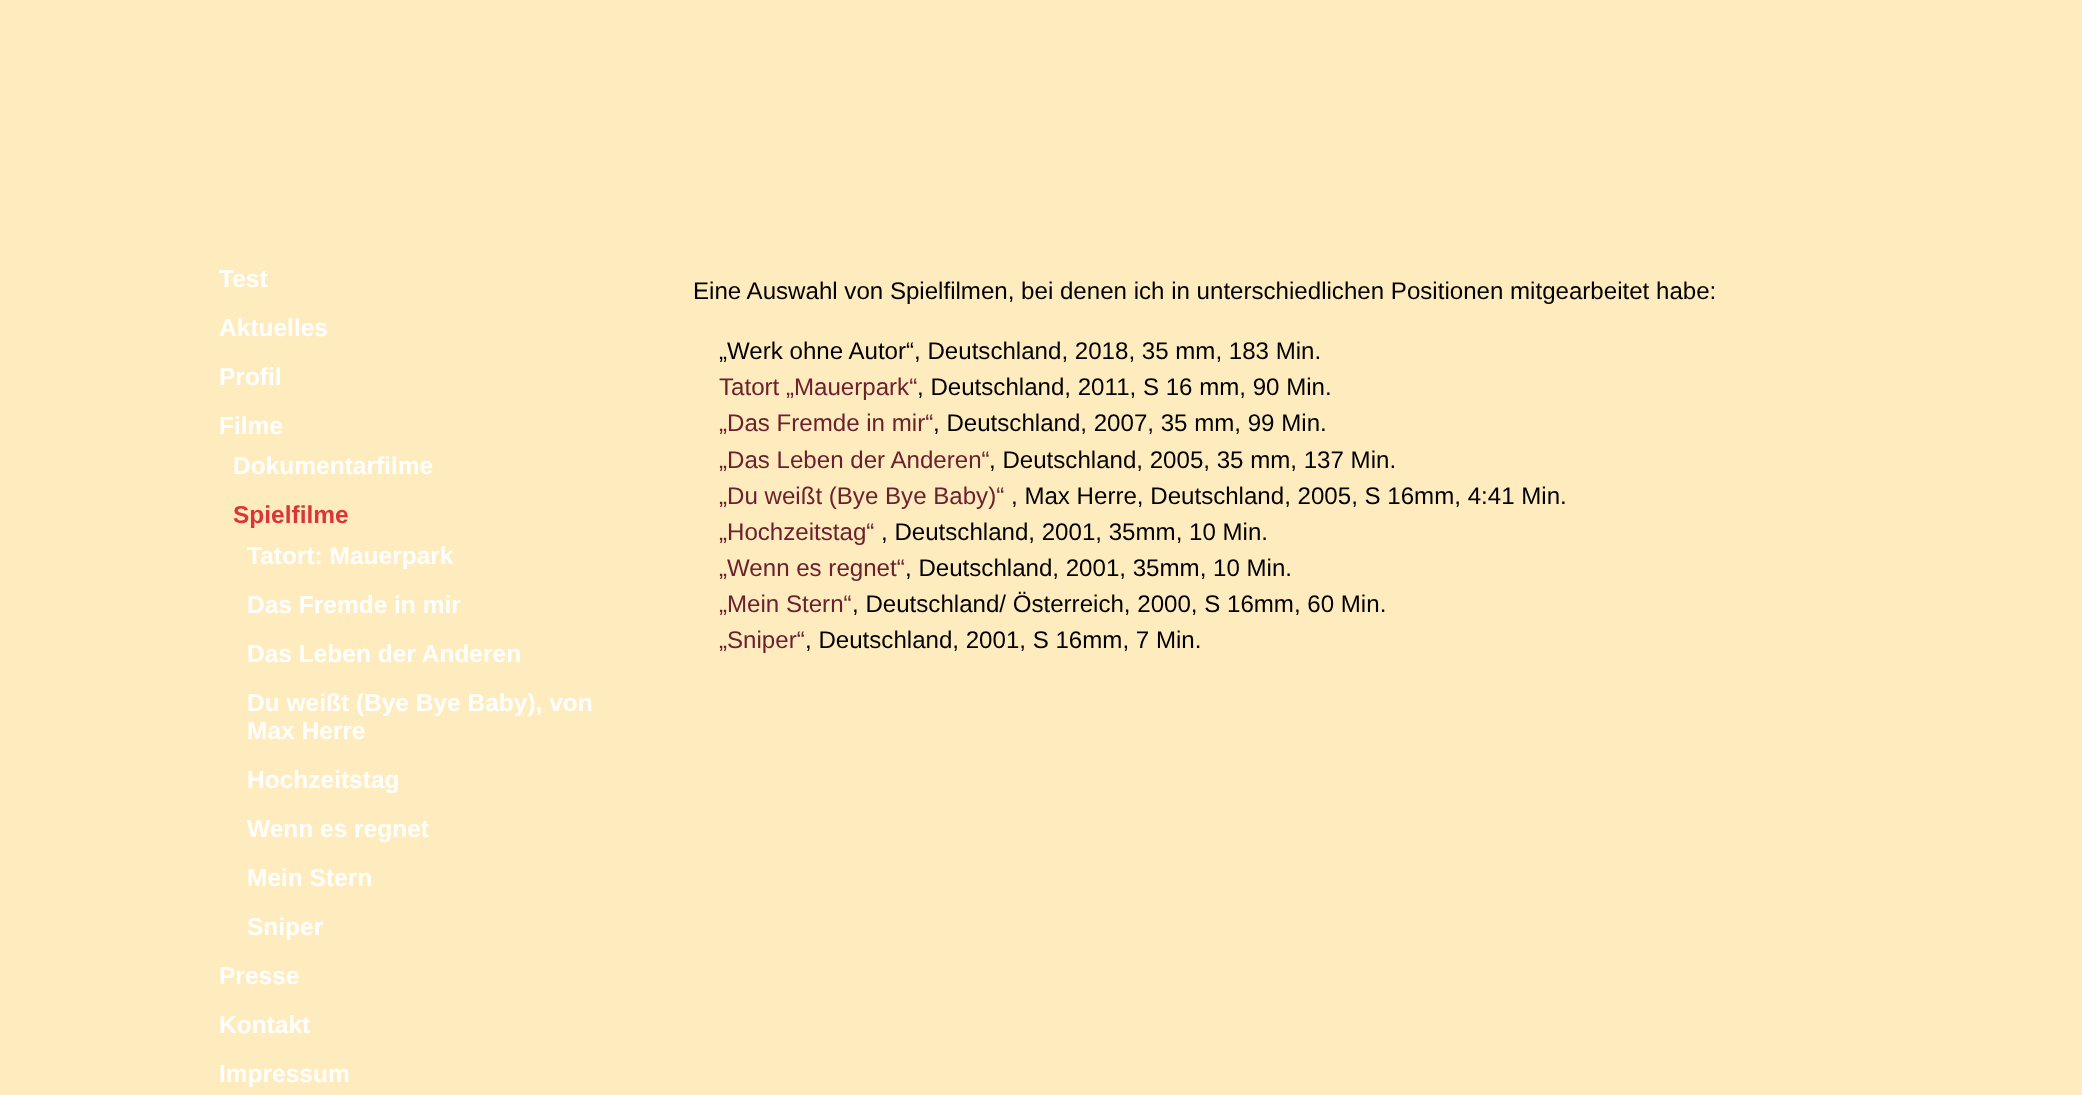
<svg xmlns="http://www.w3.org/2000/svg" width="2082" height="1095">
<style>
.a{font:bold 24.5px Liberation Sans;fill:#fff}
.b{font:bold 24.5px Liberation Sans;fill:#da353b}
.c{font:24.1px Liberation Sans;fill:#000}
.d{font:24.1px Liberation Sans;fill:#6c202e}
</style>
<rect width="100%" height="100%" fill="#ffecbe"/>
<text class="a" x="219" y="287">Test</text>
<text class="a" x="219" y="336">Aktuelles</text>
<text class="a" x="219" y="385">Profil</text>
<text class="a" x="219" y="434">Filme</text>
<text class="a" x="233" y="474">Dokumentarfilme</text>
<text class="b" x="233" y="523">Spielfilme</text>
<text class="a" x="247" y="564">Tatort: Mauerpark</text>
<text class="a" x="247" y="613">Das Fremde in mir</text>
<text class="a" x="247" y="662">Das Leben der Anderen</text>
<text class="a" x="247" y="711">Du weißt (Bye Bye Baby), von</text>
<text class="a" x="247" y="739">Max Herre</text>
<text class="a" x="247" y="788">Hochzeitstag</text>
<text class="a" x="247" y="837">Wenn es regnet</text>
<text class="a" x="247" y="886">Mein Stern</text>
<text class="a" x="247" y="935">Sniper</text>
<text class="a" x="219" y="984">Presse</text>
<text class="a" x="219" y="1033">Kontakt</text>
<text class="a" x="219" y="1082">Impressum</text>
<text class="c" x="693" y="299">Eine Auswahl von Spielfilmen, bei denen ich in unterschiedlichen Positionen mitgearbeitet habe:</text>
<text class="c" x="719" y="359">„Werk ohne Autor“, Deutschland, 2018, 35 mm, 183 Min.</text>
<text class="d" x="719" y="395">Tatort „Mauerpark“</text>
<text class="c" x="917" y="395">, Deutschland, 2011, S 16 mm, 90 Min.</text>
<text class="d" x="719" y="431">„Das Fremde in mir“</text>
<text class="c" x="933" y="431">, Deutschland, 2007, 35 mm, 99 Min.</text>
<text class="d" x="719" y="468">„Das Leben der Anderen“</text>
<text class="c" x="989" y="468">, Deutschland, 2005, 35 mm, 137 Min.</text>
<text class="d" x="719" y="504">„Du weißt (Bye Bye Baby)“</text>
<text class="c" x="1011" y="504">, Max Herre, Deutschland, 2005, S 16mm, 4:41 Min.</text>
<text class="d" x="719" y="540">„Hochzeitstag“</text>
<text class="c" x="881" y="540">, Deutschland, 2001, 35mm, 10 Min.</text>
<text class="d" x="719" y="576">„Wenn es regnet“</text>
<text class="c" x="905" y="576">, Deutschland, 2001, 35mm, 10 Min.</text>
<text class="d" x="719" y="612">„Mein Stern“</text>
<text class="c" x="852" y="612">, Deutschland/ Österreich, 2000, S 16mm, 60 Min.</text>
<text class="d" x="719" y="648">„Sniper“</text>
<text class="c" x="805" y="648">, Deutschland, 2001, S 16mm, 7 Min.</text>
</svg>
